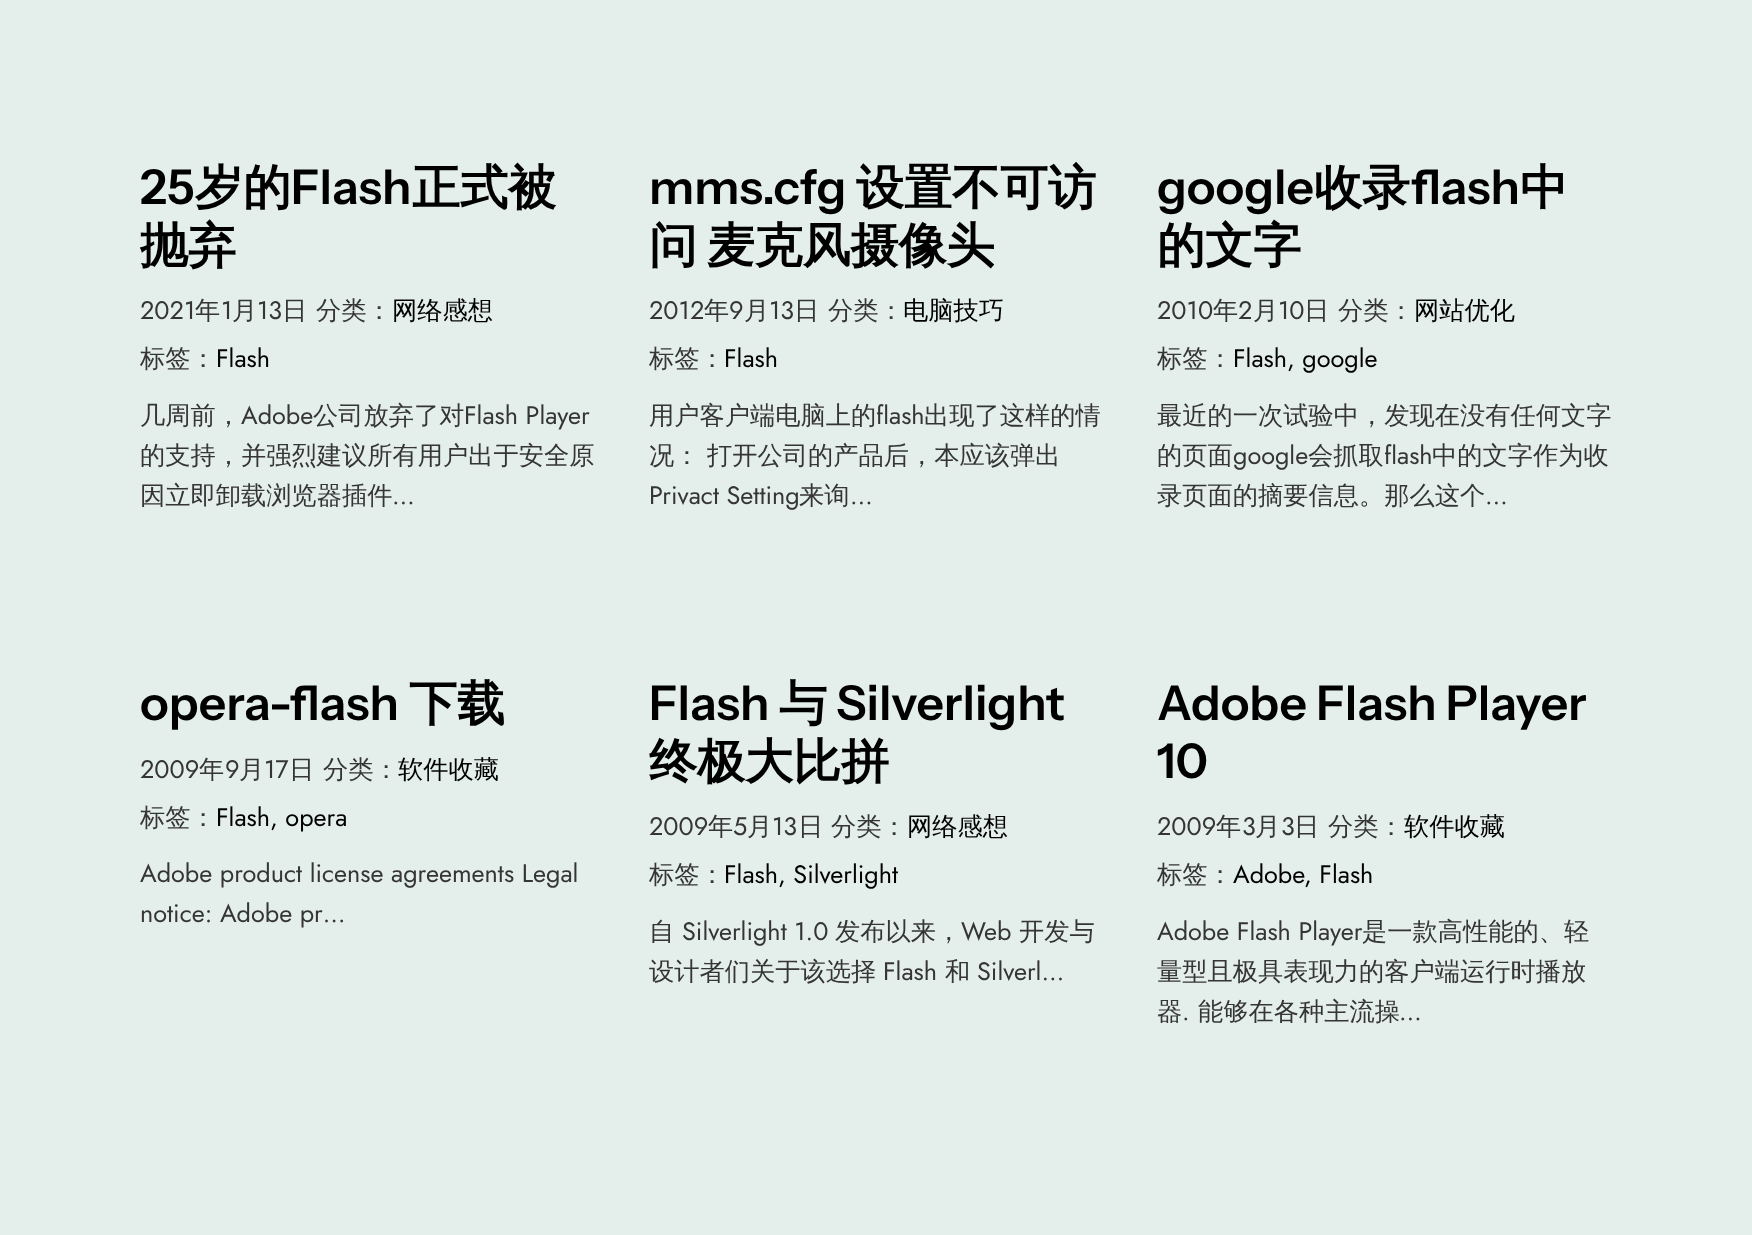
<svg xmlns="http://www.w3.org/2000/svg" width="1752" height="1235">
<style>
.a{font:600 48px Instrument Sans;fill:#000}
.b{font:bold 48px WenQuanYi Zen Hei;fill:#000}
.c{font:25.25px Jost;fill:#353535}
.d{font:500 25.25px WenQuanYi Zen Hei;fill:#353535}
.e{font:500 25.25px WenQuanYi Zen Hei;fill:#000}
.f{font:25.25px Jost;fill:#000}
</style>
<rect width="100%" height="100%" fill="#e4efeb"/>
<text class="a" x="140" y="204">25</text>
<text class="b" x="195" y="204">岁的</text>
<text class="a" x="291" y="204">Flash</text>
<text class="b" x="412" y="204">正式被</text>
<text class="b" x="140" y="262">抛弃</text>
<text class="c" x="140" y="319">2021</text>
<text class="d" x="195" y="319">年</text>
<text class="c" x="221" y="319">1</text>
<text class="d" x="232" y="319">月</text>
<text class="c" x="257" y="319">13</text>
<text class="d" x="282" y="319">日</text>
<text class="d" x="316" y="319">分类：</text>
<text class="e" x="392" y="319">网络感想</text>
<text class="d" x="140" y="367">标签：</text>
<text class="f" x="216" y="367">Flash</text>
<text class="d" x="140" y="424">几周前，</text>
<text class="c" x="241" y="424">Adobe</text>
<text class="d" x="313" y="424">公司放弃了对</text>
<text class="c" x="464" y="424">Flash Player</text>
<text class="d" x="140" y="464">的支持，并强烈建议所有用户出于安全原</text>
<text class="d" x="140" y="504">因立即卸载浏览器插件</text>
<text class="c" x="392" y="504">…</text>
<text class="a" x="649" y="204">mms.cfg</text>
<text class="b" x="856" y="204">设置不可访</text>
<text class="b" x="649" y="262" word-spacing="-5">问 麦克风摄像头</text>
<text class="c" x="649" y="319">2012</text>
<text class="d" x="704" y="319">年</text>
<text class="c" x="729" y="319">9</text>
<text class="d" x="744" y="319">月</text>
<text class="c" x="769" y="319">13</text>
<text class="d" x="794" y="319">日</text>
<text class="d" x="828" y="319">分类：</text>
<text class="e" x="903" y="319">电脑技巧</text>
<text class="d" x="649" y="367">标签：</text>
<text class="f" x="724" y="367">Flash</text>
<text class="d" x="649" y="424">用户客户端电脑上的</text>
<text class="c" x="876" y="424">flash</text>
<text class="d" x="924" y="424">出现了这样的情</text>
<text class="d" x="649" y="464">况： 打开公司的产品后，本应该弹出</text>
<text class="c" x="649" y="504">Privact Setting</text>
<text class="d" x="799" y="504">来询</text>
<text class="c" x="850" y="504">…</text>
<text class="a" x="1157" y="204">google</text>
<text class="b" x="1314" y="204">收录</text>
<text class="a" x="1411" y="204">flash</text>
<text class="b" x="1520" y="204">中</text>
<text class="b" x="1157" y="262">的文字</text>
<text class="c" x="1157" y="319">2010</text>
<text class="d" x="1213" y="319">年</text>
<text class="c" x="1238" y="319">2</text>
<text class="d" x="1253" y="319">月</text>
<text class="c" x="1278" y="319">10</text>
<text class="d" x="1304" y="319">日</text>
<text class="d" x="1338" y="319">分类：</text>
<text class="e" x="1414" y="319">网站优化</text>
<text class="d" x="1157" y="367">标签：</text>
<text class="f" x="1233" y="367">Flash, google</text>
<text class="d" x="1157" y="424">最近的一次试验中，发现在没有任何文字</text>
<text class="d" x="1157" y="464">的页面</text>
<text class="c" x="1233" y="464">google</text>
<text class="d" x="1308" y="464">会抓取</text>
<text class="c" x="1384" y="464">flash</text>
<text class="d" x="1432" y="464">中的文字作为收</text>
<text class="d" x="1157" y="504">录页面的摘要信息。那么这个</text>
<text class="c" x="1485" y="504">…</text>
<text class="a" x="140" y="720">opera-flash</text>
<text class="b" x="409" y="720">下载</text>
<text class="c" x="140" y="778">2009</text>
<text class="d" x="199" y="778">年</text>
<text class="c" x="225" y="778">9</text>
<text class="d" x="239" y="778">月</text>
<text class="c" x="264" y="778">17</text>
<text class="d" x="289" y="778">日</text>
<text class="d" x="323" y="778">分类：</text>
<text class="e" x="398" y="778">软件收藏</text>
<text class="d" x="140" y="826">标签：</text>
<text class="f" x="216" y="826">Flash, opera</text>
<text class="c" x="140" y="882">Adobe product license agreements Legal</text>
<text class="c" x="140" y="922">notice: Adobe pr…</text>
<text class="a" x="649" y="720">Flash</text>
<text class="b" x="779" y="720">与</text>
<text class="a" x="836" y="720">Silverlight</text>
<text class="b" x="649" y="778">终极大比拼</text>
<text class="c" x="649" y="835">2009</text>
<text class="d" x="708" y="835">年</text>
<text class="c" x="733" y="835">5</text>
<text class="d" x="747" y="835">月</text>
<text class="c" x="772" y="835">13</text>
<text class="d" x="798" y="835">日</text>
<text class="d" x="831" y="835">分类：</text>
<text class="e" x="907" y="835">网络感想</text>
<text class="d" x="649" y="883">标签：</text>
<text class="f" x="724" y="883">Flash, Silverlight</text>
<text class="d" x="649" y="940">自</text>
<text class="c" x="682" y="940">Silverlight 1.0</text>
<text class="d" x="835" y="940">发布以来，</text>
<text class="c" x="961" y="940">Web</text>
<text class="d" x="1019" y="940">开发与</text>
<text class="d" x="649" y="980">设计者们关于该选择</text>
<text class="c" x="883" y="980">Flash</text>
<text class="d" x="945" y="980">和</text>
<text class="c" x="977" y="980">Silverl…</text>
<text class="a" x="1157" y="720">Adobe Flash Player</text>
<text class="a" x="1157" y="778">10</text>
<text class="c" x="1157" y="835">2009</text>
<text class="d" x="1216" y="835">年</text>
<text class="c" x="1242" y="835">3</text>
<text class="d" x="1255" y="835">月</text>
<text class="c" x="1281" y="835">3</text>
<text class="d" x="1294" y="835">日</text>
<text class="d" x="1328" y="835">分类：</text>
<text class="e" x="1404" y="835">软件收藏</text>
<text class="d" x="1157" y="883">标签：</text>
<text class="f" x="1233" y="883">Adobe</text>
<text class="f" x="1304" y="883">, Flash</text>
<text class="c" x="1157" y="940">Adobe Flash Player</text>
<text class="d" x="1362" y="940">是一款高性能的、轻</text>
<text class="d" x="1157" y="980">量型且极具表现力的客户端运行时播放</text>
<text class="d" x="1157" y="1020">器</text>
<text class="c" x="1182" y="1020">.</text>
<text class="d" x="1198" y="1020">能够在各种主流操</text>
<text class="c" x="1399" y="1020">…</text>
</svg>
